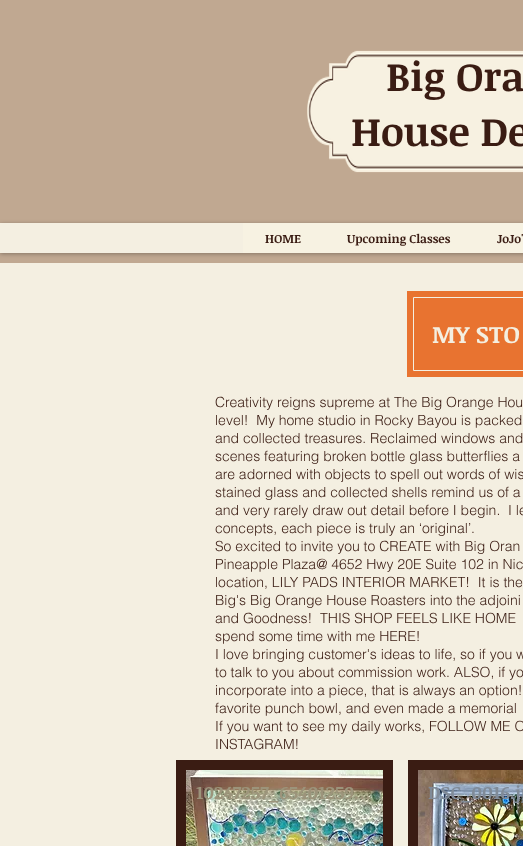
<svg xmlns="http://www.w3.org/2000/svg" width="523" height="846">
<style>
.a{font:bold 40px Noticia Text;fill:#3a1c13}
.b{font:bold 12px Noticia Text;fill:#3a1c13}
.c{font:bold 24px Noticia Text;fill:#f4efe1}
.d{font:300 14px helvetica;fill:#3a1c13}
.e{font:bold 18px Noticia Text;fill:#9c947b}
.f{font:bold 18px Noticia Text;fill:#808b98}
</style>
<rect width="100%" height="100%" fill="#c0a891"/>
<image href="1.png" x="307" y="50" width="216" height="123"/>
<path fill="#0000004d" filter="blur(2px)" d="M0 224h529v30H0z"/>
<path fill="#f4efe1" d="M0 223h243v30H0z"/>
<path fill="#f7f2e2" d="M243 223h280v30H243z"/>
<path fill="#f4efe1" d="M0 263h523v583H0z"/>
<path fill="#e87330" d="M407 291h116v86H407z"/>
<path fill="none" stroke="#f4efe1" d="M413.5 297.5h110v73H413.5z"/>
<path fill="#3a1c13" d="M176 760h217v86H176z"/>
<image href="2.png" x="186" y="770" width="197" height="76"/>
<path fill="#3a1c13" d="M408 760h115v86H408z"/>
<image href="3.png" x="418" y="770" width="105" height="76"/>
<text class="a" x="386" y="91">Big Ora</text>
<text class="a" x="351" y="146">House De</text>
<text class="b" x="265" y="243">HOME</text>
<text class="b" x="347" y="243">Upcoming Classes</text>
<text class="b" x="497" y="243">JoJo'</text>
<text class="c" x="432" y="343">MY STO</text>
<text class="d" x="215" y="407">Creativity reigns supreme at The Big Orange Hou</text>
<text class="d" xml:space="preserve" x="215" y="425">level!  My home studio in Rocky Bayou is packed</text>
<text class="d" x="215" y="443">and collected treasures. Reclaimed windows and</text>
<text class="d" x="215" y="461">scenes featuring broken bottle glass butterflies a</text>
<text class="d" x="215" y="479">are adorned with objects to spell out words of wis</text>
<text class="d" x="215" y="497">stained glass and collected shells remind us of a</text>
<text class="d" xml:space="preserve" x="215" y="515">and very rarely draw out detail before I begin.  I le</text>
<text class="d" x="215" y="533">concepts, each piece is truly an ‘original’.</text>
<text class="d" x="215" y="551">So excited to invite you to CREATE with Big Oran</text>
<text class="d" x="215" y="569">Pineapple Plaza@ 4652 Hwy 20E Suite 102 in Nic</text>
<text class="d" xml:space="preserve" x="215" y="587">location, LILY PADS INTERIOR MARKET!  It is the</text>
<text class="d" x="215" y="605">Big's Big Orange House Roasters into the adjoini</text>
<text class="d" xml:space="preserve" x="215" y="623">and Goodness!  THIS SHOP FEELS LIKE HOME</text>
<text class="d" x="215" y="641">spend some time with me HERE!</text>
<text class="d" x="215" y="659">I love bringing customer's ideas to life, so if you w</text>
<text class="d" x="215" y="677">to talk to you about commission work. ALSO, if yo</text>
<text class="d" x="215" y="695">incorporate into a piece, that is always an option!</text>
<text class="d" x="215" y="713">favorite punch bowl, and even made a memorial</text>
<text class="d" x="215" y="731">If you want to see my daily works, FOLLOW ME O</text>
<text class="d" x="215" y="749">INSTAGRAM!</text>
<text class="e" x="196" y="799">10247257_65401259…</text>
<text class="f" x="428" y="799">DSC_0016.jp</text>
</svg>
